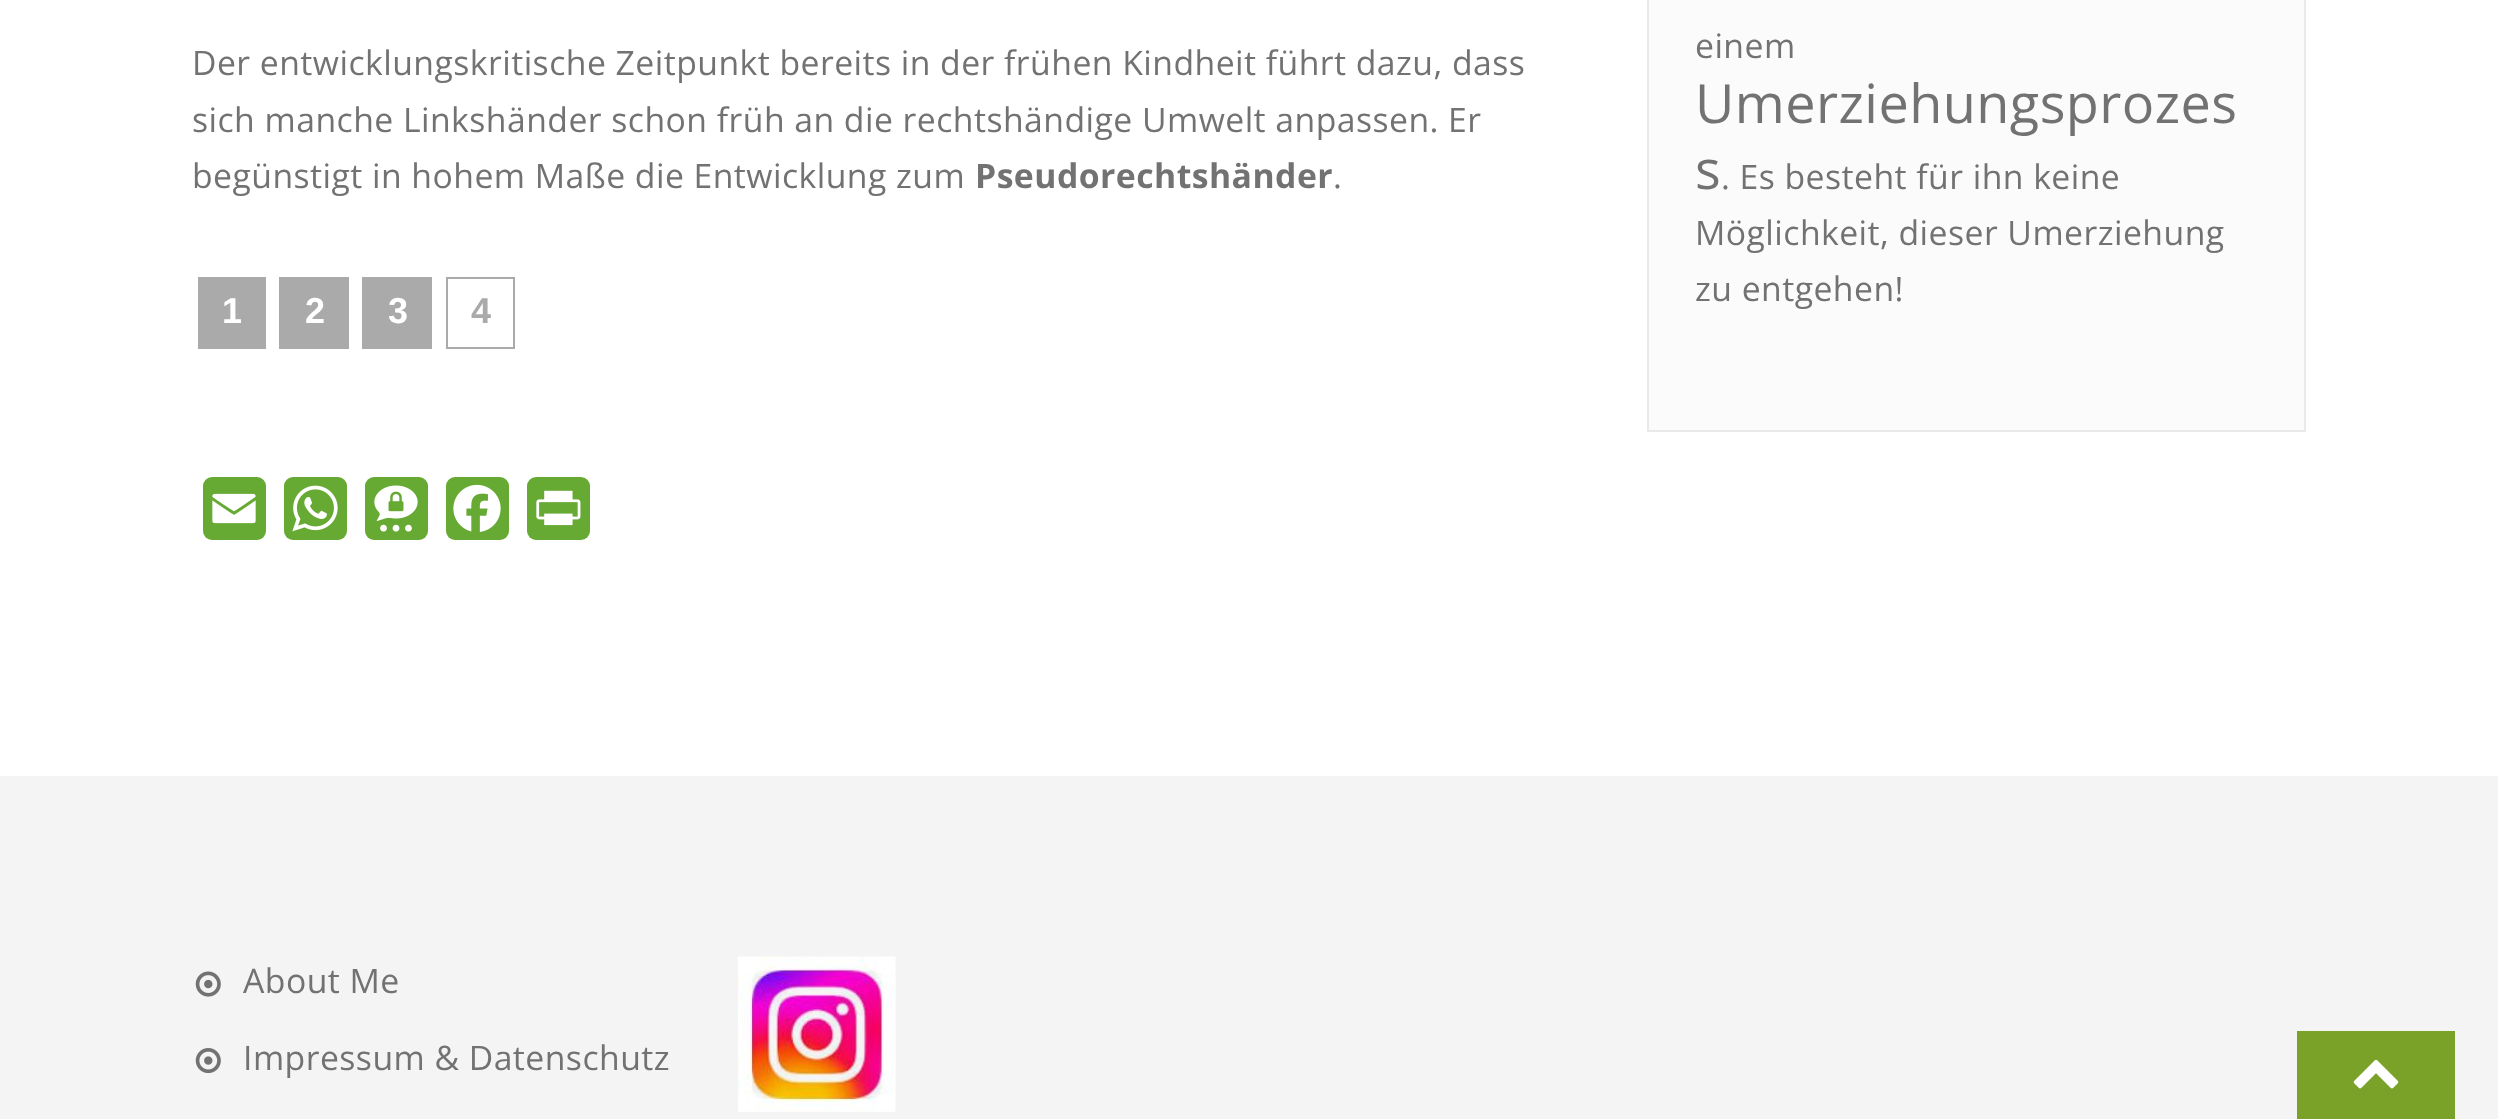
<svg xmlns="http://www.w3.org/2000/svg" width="2498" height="1119">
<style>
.a{font:33.75px Open Sans;letter-spacing:0.45px;fill:#727272}
.b{font:bold 33.75px Open Sans;letter-spacing:0.45px;fill:#727272}
.c{font:bold 36px Liberation Sans;fill:#fff}
.d{font:bold 36px Liberation Sans;fill:#aaa}
.e{font:54px Open Sans;letter-spacing:0.45px;fill:#727272}
</style>
<rect width="100%" height="100%" fill="#fff"/>
<path fill="#aaa" d="M198 277h68v72H198z"/>
<path fill="#aaa" d="M279 277h70v72H279z"/>
<path fill="#aaa" d="M362 277h70v72H362z"/>
<path fill="none" stroke="#aaa" stroke-width="2" d="M447 278h67v70H447z"/>
<rect fill="#66aa34" x="203" y="477" width="63" height="63" rx="9"/>
<image href="1.png" x="212" y="493" width="44" height="31"/>
<rect fill="#66aa34" x="284" y="477" width="63" height="63" rx="9"/>
<image href="2.png" x="292" y="485" width="46" height="47"/>
<rect fill="#66aa34" x="365" y="477" width="63" height="63" rx="9"/>
<image href="3.png" x="374" y="485" width="44" height="47"/>
<rect fill="#66aa34" x="446" y="477" width="63" height="63" rx="9"/>
<image href="4.png" x="453" y="484" width="48" height="48"/>
<rect fill="#66aa34" x="527" y="477" width="63" height="63" rx="9"/>
<image href="5.png" x="536" y="490" width="45" height="36"/>
<path fill="#fbfbfb" stroke="#e9e9e9" stroke-width="2" d="M1648 -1h657v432H1648z"/>
<path fill="#f4f4f4" d="M0 776h2498v343H0z"/>
<image href="6.png" x="195" y="971" width="26" height="26"/>
<image href="7.png" x="195" y="1048" width="26" height="26"/>
<image href="8.png" x="738" y="956" width="158" height="156"/>
<path fill="#7aa228" d="M2297 1031h158v88H2297z"/>
<image href="9.png" x="2353" y="1059" width="46" height="30"/>
<text class="a" x="192" y="75">Der entwicklungskritische Zeitpunkt bereits in der frühen Kindheit führt dazu, dass</text>
<text class="a" x="192" y="132">sich manche Linkshänder schon früh an die rechtshändige Umwelt anpassen. Er</text>
<text class="a" x="192" y="188">begünstigt in hohem Maße die Entwicklung zum</text>
<text class="b" x="975" y="188">Pseudorechtshänder</text>
<text class="a" x="1333" y="188">.</text>
<text class="c" x="222" y="323">1</text>
<text class="c" x="305" y="323">2</text>
<text class="c" x="388" y="323">3</text>
<text class="d" x="471" y="323">4</text>
<text class="a" x="1695" y="58">einem</text>
<text class="e" x="1695" y="123">Umerziehungsprozes</text>
<text class="e" x="1695" y="189">s</text>
<text class="a" x="1721" y="189">. Es besteht für ihn keine</text>
<text class="a" x="1695" y="245">Möglichkeit, dieser Umerziehung</text>
<text class="a" x="1695" y="301">zu entgehen!</text>
<text class="a" x="243" y="993">About Me</text>
<text class="a" x="243" y="1070">Impressum &amp; Datenschutz</text>
</svg>
